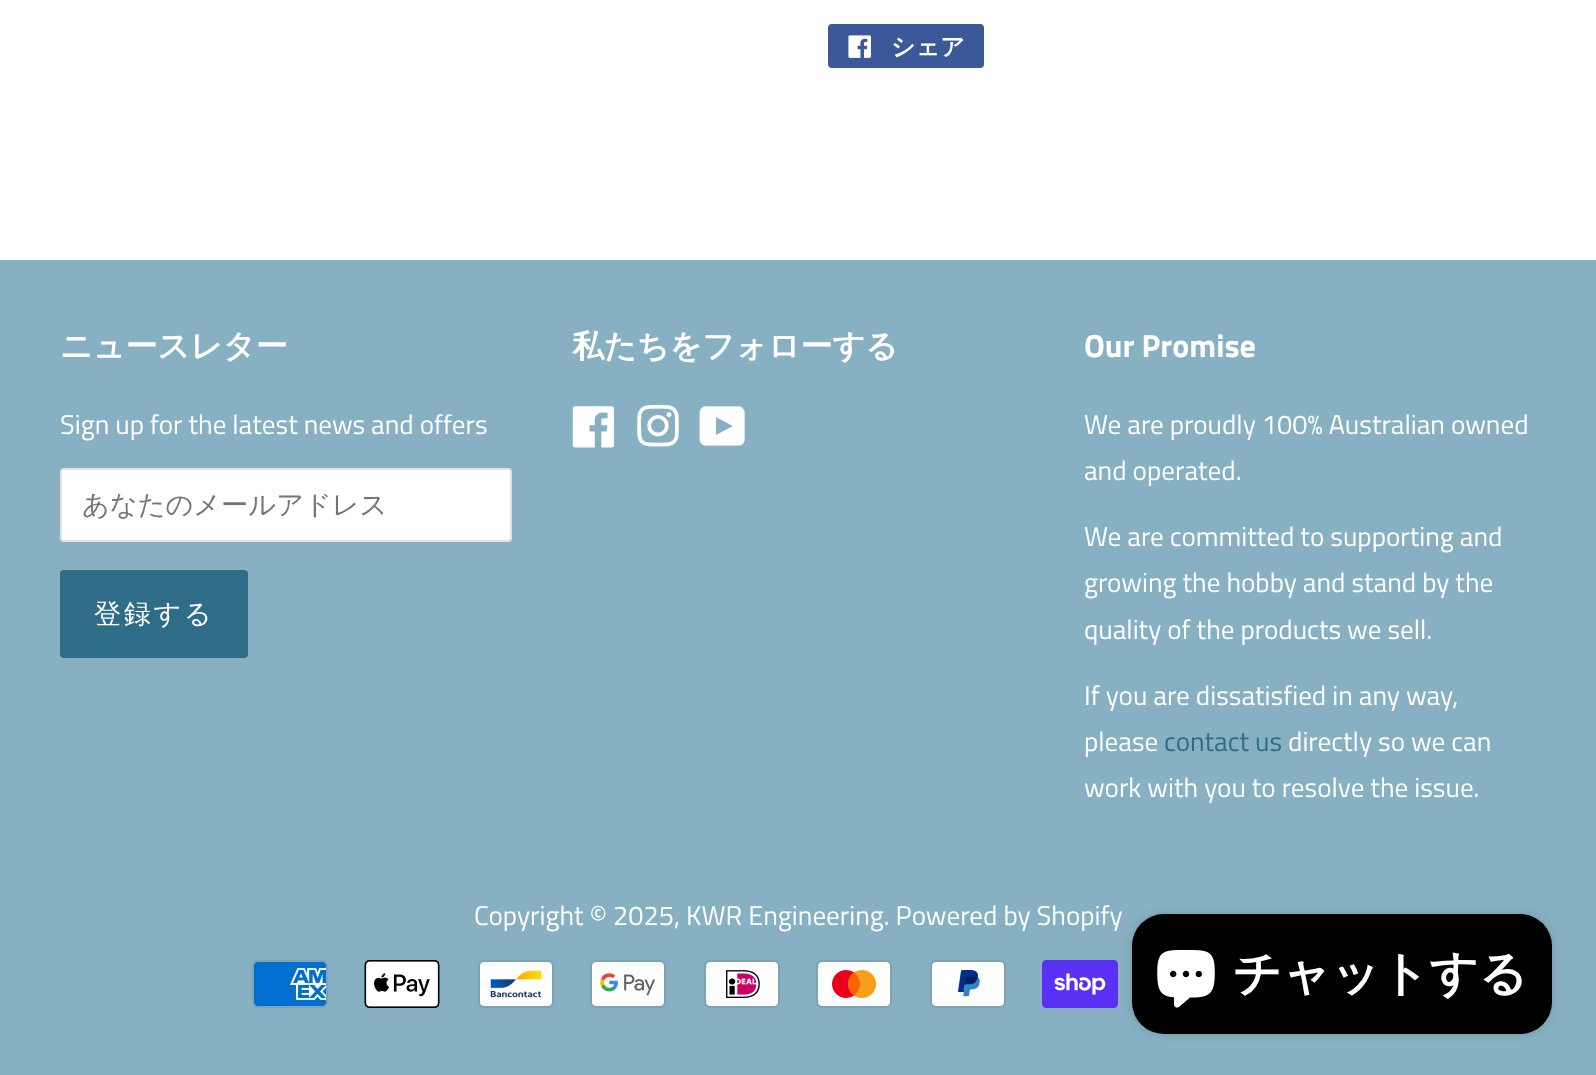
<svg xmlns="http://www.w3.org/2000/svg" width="1596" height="1075">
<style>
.a{font:bold 24px WenQuanYi Zen Hei;fill:#fff}
.b{font:bold 32px WenQuanYi Zen Hei;fill:#fff}
.c{font:27.2px Titillium Web;fill:#fff}
.d{font:500 27.2px WenQuanYi Zen Hei;fill:#757575}
.e{font:500 27.2px WenQuanYi Zen Hei;letter-spacing:2.5px;fill:#fff}
.f{font:bold 32px Titillium Web;fill:#fff}
.g{font:27.2px Titillium Web;fill:#2e6c87}
.h{font:bold 48px WenQuanYi Zen Hei;fill:#fff}
</style>
<rect width="100%" height="100%" fill="#fff"/>
<rect fill="#3b5998" x="828" y="24" width="156" height="44" rx="4"/>
<image href="1.png" x="848" y="35" width="23" height="23"/>
<path fill="#87b1c3" d="M0 260h1596v815H0z"/>
<rect fill="#fff" x="60" y="468" width="452" height="74" rx="4"/>
<rect fill="none" stroke="#403b3726" stroke-width="2" x="61" y="469" width="450" height="72" rx="3"/>
<rect fill="#2e6c87" x="60" y="570" width="188" height="88" rx="4"/>
<image href="2.png" x="572" y="406" width="42" height="42"/>
<image href="3.png" x="637" y="404" width="42" height="43"/>
<image href="4.png" x="699" y="406" width="46" height="40"/>
<image href="5.png" x="252" y="960" width="76" height="48"/>
<image href="6.png" x="364" y="960" width="76" height="48"/>
<image href="7.png" x="478" y="960" width="76" height="48"/>
<image href="8.png" x="590" y="960" width="76" height="48"/>
<image href="9.png" x="704" y="960" width="76" height="48"/>
<image href="10.png" x="816" y="960" width="76" height="48"/>
<image href="11.png" x="930" y="960" width="76" height="48"/>
<image href="12.png" x="1042" y="960" width="76" height="48"/>
<rect fill="#00000026" filter="blur(5px)" x="1132" y="914" width="420" height="120" rx="32"/>
<rect fill="#000" x="1132" y="914" width="420" height="120" rx="32"/>
<image href="13.png" x="1157" y="950" width="58" height="58"/>
<text class="a" x="891" y="55">シェア</text>
<text class="b" x="60" y="357">ニュースレター</text>
<text class="c" x="60" y="434">Sign up for the latest news and offers</text>
<text class="d" x="82" y="514">あなたのメールアドレス</text>
<text class="e" x="94" y="623">登録する</text>
<text class="b" x="572" y="357">私たちをフォローする</text>
<text class="f" x="1084" y="357">Our Promise</text>
<text class="c" x="1084" y="434">We are proudly 100% Australian owned</text>
<text class="c" x="1084" y="480">and operated.</text>
<text class="c" x="1084" y="546">We are committed to supporting and</text>
<text class="c" x="1084" y="592">growing the hobby and stand by the</text>
<text class="c" x="1084" y="639">quality of the products we sell.</text>
<text class="c" x="1084" y="705">If you are dissatisfied in any way,</text>
<text class="c" x="1084" y="751">please</text>
<text class="g" x="1164" y="751">contact us</text>
<text class="c" x="1288" y="751">directly so we can</text>
<text class="c" x="1084" y="797">work with you to resolve the issue.</text>
<text class="c" x="474" y="925">Copyright © 2025, KWR Engineering. Powered by Shopify</text>
<text class="h" x="1233" y="990">チャットする</text>
</svg>
